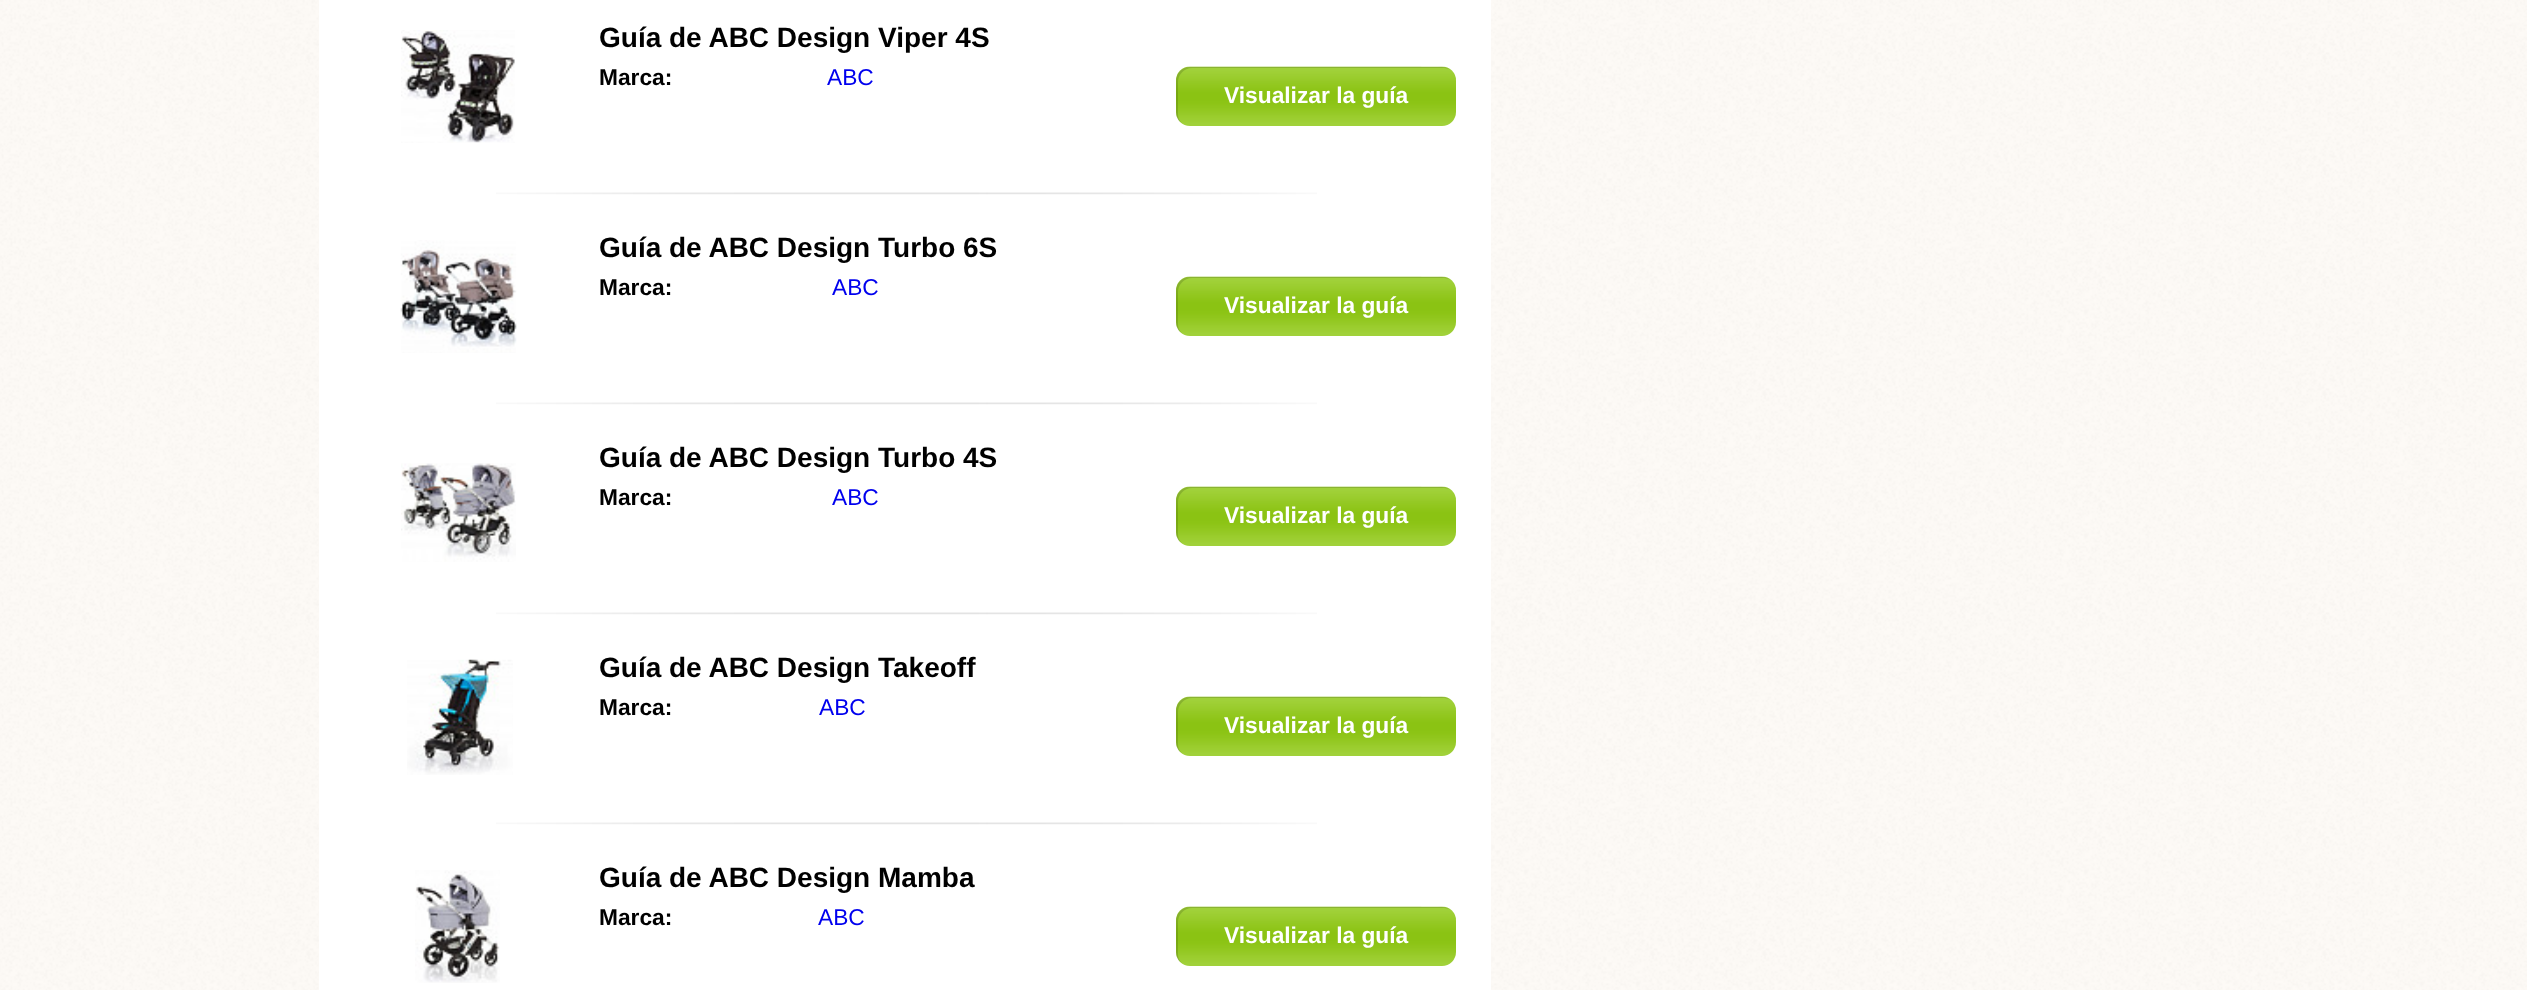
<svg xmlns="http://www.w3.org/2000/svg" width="2527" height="990">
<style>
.a{font:bold 28px Liberation Sans;fill:#000}
.b{font:bold 22.75px Liberation Sans;fill:#000}
.c{font:22.75px Liberation Sans;fill:#00e}
.d{font:bold 22.75px Liberation Sans;fill:#fff}
</style>
<rect width="100%" height="100%" fill="#fff"/>
<image href="1.png" x="0" y="0" width="2527" height="990"/>
<path fill="#fff" d="M319 0h1172v990H319z"/>
<image href="2.png" x="496" y="192" width="821" height="3"/>
<image href="3.png" x="401" y="30" width="114" height="113"/>
<image href="4.png" x="1176" y="66" width="280" height="60"/>
<path fill="#00000024" d="M1192 68h252c2 0 5 1 7 2c-3-2-6-3-9-3h-252c-8 0-14 6-14 14v31c0 5 2 9 6 11c-3-2-4-6-4-9v-32c0-7 6-14 14-14z"/>
<image href="2.png" x="496" y="402" width="821" height="3"/>
<image href="5.png" x="400" y="240" width="117" height="113"/>
<image href="4.png" x="1176" y="276" width="280" height="60"/>
<path fill="#00000024" d="M1192 278h252c2 0 5 1 7 2c-3-2-6-3-9-3h-252c-8 0-14 6-14 14v31c0 5 2 9 6 11c-3-2-4-6-4-9v-32c0-7 6-14 14-14z"/>
<image href="2.png" x="496" y="612" width="821" height="3"/>
<image href="6.png" x="401" y="463" width="115" height="99"/>
<image href="4.png" x="1176" y="486" width="280" height="60"/>
<path fill="#00000024" d="M1192 488h252c2 0 5 1 7 2c-3-2-6-3-9-3h-252c-8 0-14 6-14 14v31c0 5 2 9 6 11c-3-2-4-6-4-9v-32c0-7 6-14 14-14z"/>
<image href="2.png" x="496" y="822" width="821" height="3"/>
<image href="7.png" x="407" y="659" width="106" height="116"/>
<image href="4.png" x="1176" y="696" width="280" height="60"/>
<path fill="#00000024" d="M1192 698h252c2 0 5 1 7 2c-3-2-6-3-9-3h-252c-8 0-14 6-14 14v31c0 5 2 9 6 11c-3-2-4-6-4-9v-32c0-7 6-14 14-14z"/>
<image href="8.png" x="415" y="870" width="85" height="113"/>
<image href="4.png" x="1176" y="906" width="280" height="60"/>
<path fill="#00000024" d="M1192 908h252c2 0 5 1 7 2c-3-2-6-3-9-3h-252c-8 0-14 6-14 14v31c0 5 2 9 6 11c-3-2-4-6-4-9v-32c0-7 6-14 14-14z"/>
<text class="a" x="599" y="47">Guía de ABC Design Viper 4S</text>
<text class="b" x="599" y="85">Marca:</text>
<text class="c" x="827" y="85">ABC</text>
<text class="d" x="1224" y="103">Visualizar la guía</text>
<text class="a" x="599" y="257">Guía de ABC Design Turbo 6S</text>
<text class="b" x="599" y="295">Marca:</text>
<text class="c" x="832" y="295">ABC</text>
<text class="d" x="1224" y="313">Visualizar la guía</text>
<text class="a" x="599" y="467">Guía de ABC Design Turbo 4S</text>
<text class="b" x="599" y="505">Marca:</text>
<text class="c" x="832" y="505">ABC</text>
<text class="d" x="1224" y="523">Visualizar la guía</text>
<text class="a" x="599" y="677">Guía de ABC Design Takeoff</text>
<text class="b" x="599" y="715">Marca:</text>
<text class="c" x="819" y="715">ABC</text>
<text class="d" x="1224" y="733">Visualizar la guía</text>
<text class="a" x="599" y="887">Guía de ABC Design Mamba</text>
<text class="b" x="599" y="925">Marca:</text>
<text class="c" x="818" y="925">ABC</text>
<text class="d" x="1224" y="943">Visualizar la guía</text>
</svg>
